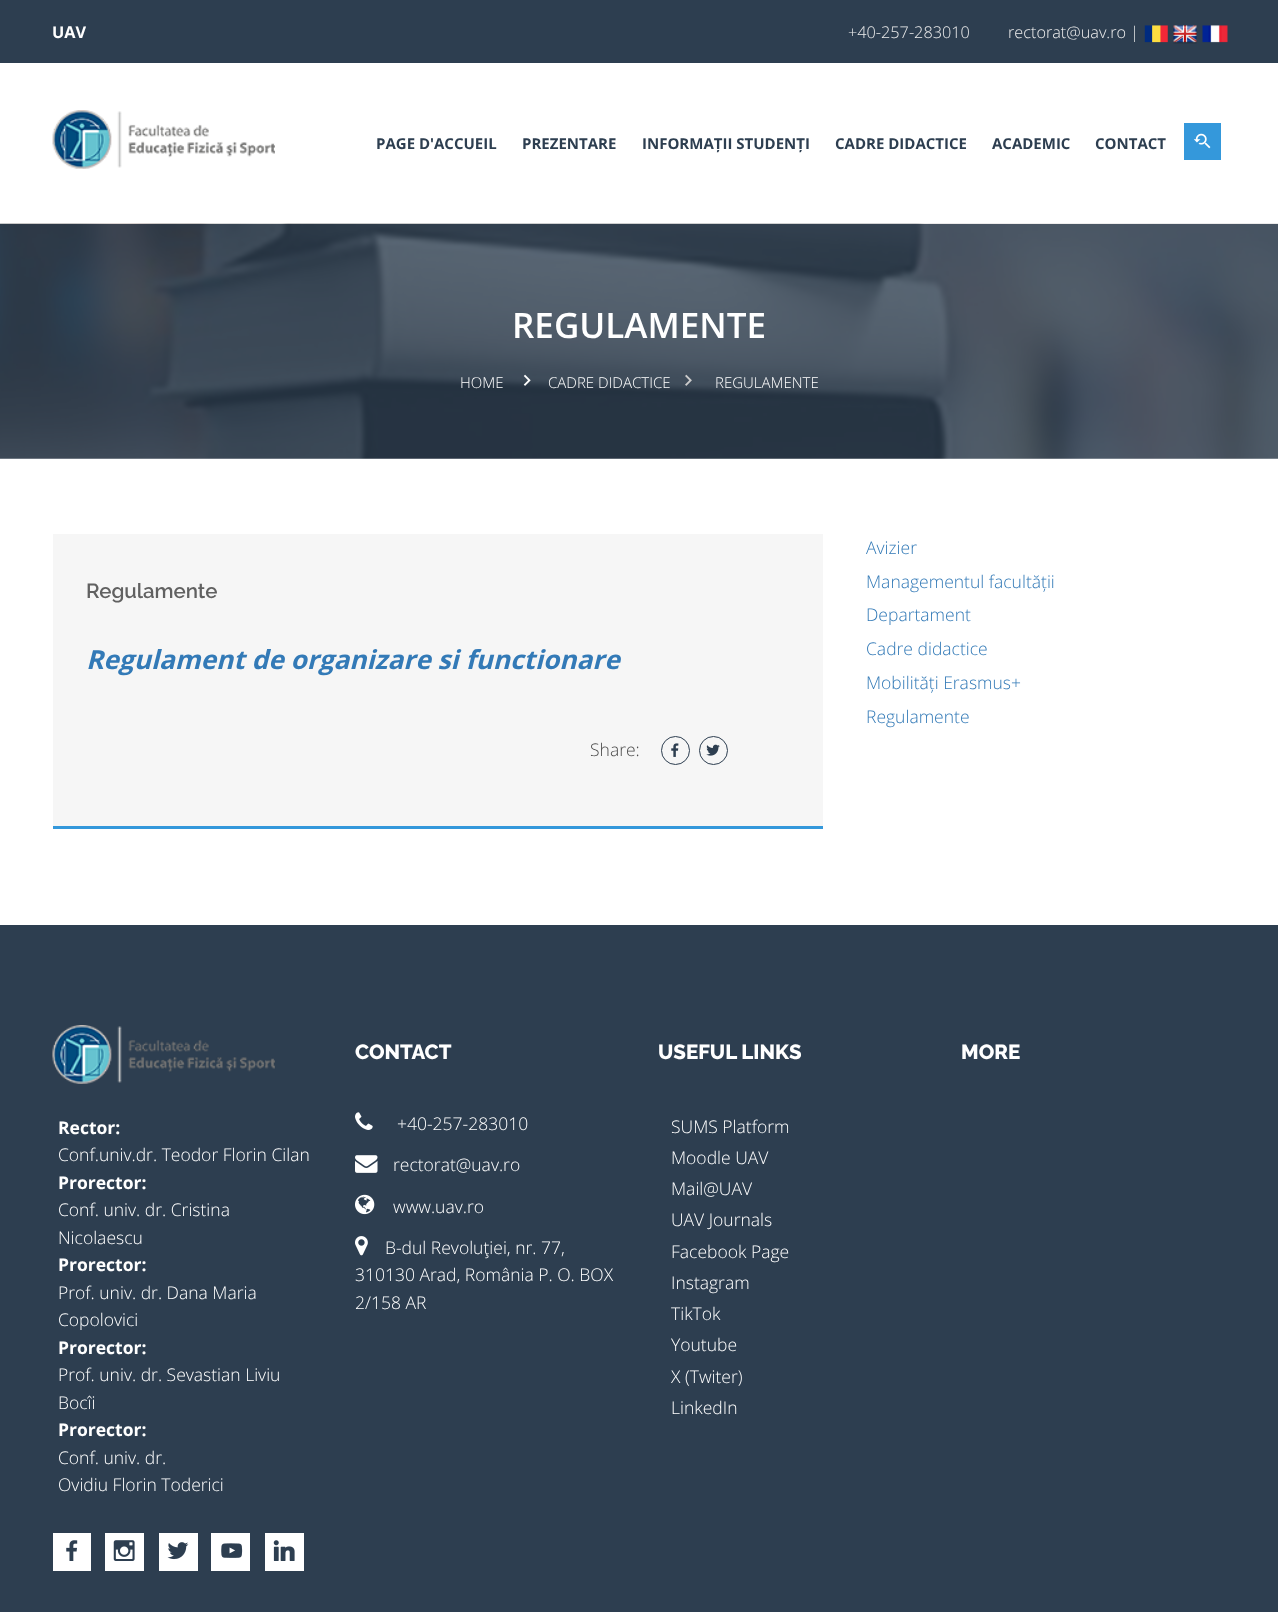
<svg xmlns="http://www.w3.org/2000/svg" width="1278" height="1612">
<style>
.a{font:bold 16.25px Open Sans;fill:#fff}
.b{font:300 16.25px Open Sans;fill:#ededed}
.c{font:bold 15px Open Sans;fill:#2d3e50}
.d{font:600 35px Open Sans;fill:#fff}
.e{font:300 15px Open Sans;fill:#fff}
.f{font:600 20.5px Raleway;fill:#616161}
.g{font:italic bold 26.25px Open Sans;fill:#337ab7}
.h{font:300 17.5px Open Sans;fill:#4c4c4c}
.i{font:300 17.5px Open Sans;fill:#337ab7}
.j{font:800 20.5px Raleway;fill:#fff}
.k{font:300 17.5px Open Sans;fill:#fff}
.l{font:bold 17.5px Open Sans;fill:#fff}
</style>
<rect width="100%" height="100%" fill="#fff"/>
<path fill="#2d3e50" d="M0 0h1278v63H0z"/>
<image href="1.png" x="1144" y="25" width="24" height="18"/>
<image href="2.png" x="1173" y="25" width="24" height="19"/>
<image href="3.png" x="1202" y="25" width="26" height="18"/>
<image href="4.png" x="52" y="110" width="223" height="59"/>
<path fill="#3498db" d="M1184 123h37v37H1184z"/>
<image href="5.png" x="1193" y="133" width="18" height="16"/>
<image href="6.png" x="0" y="223" width="1278" height="236"/>
<image href="7.png" x="523" y="374" width="8" height="12"/>
<image href="8.png" x="685" y="374" width="7" height="12"/>
<path fill="#f6f6f6" d="M53 534h770v292H53z"/>
<path fill="#3498db" d="M53 826h770v3H53z"/>
<circle fill="none" stroke="#2d3e50" cx="675.5" cy="750.5" r="14"/>
<image href="9.png" x="671" y="743" width="8" height="14"/>
<circle fill="none" stroke="#2d3e50" cx="713.5" cy="750.5" r="14"/>
<image href="10.png" x="706" y="744" width="14" height="12"/>
<path fill="#2d3e50" d="M0 925h1278v687H0z"/>
<image href="11.png" x="355" y="1112" width="18" height="18"/>
<image href="12.png" x="355" y="1155" width="23" height="18"/>
<image href="13.png" x="355" y="1194" width="20" height="21"/>
<image href="14.png" x="355" y="1236" width="13" height="20"/>
<image href="15.png" x="52" y="1025" width="223" height="59"/>
<path fill="#fff" d="M53 1533h38v38H53z"/>
<image href="16.png" x="66" y="1540" width="12" height="21"/>
<path fill="#fff" d="M105 1533h39v38H105z"/>
<image href="17.png" x="113" y="1540" width="22" height="21"/>
<path fill="#fff" d="M159 1533h39v38H159z"/>
<image href="18.png" x="167" y="1542" width="22" height="18"/>
<path fill="#fff" d="M211 1533h39v38H211z"/>
<image href="19.png" x="221" y="1543" width="22" height="15"/>
<path fill="#fff" d="M265 1533h39v38H265z"/>
<image href="20.png" x="273" y="1540" width="22" height="21"/>
<text class="a" x="52" y="38">UAV</text>
<text class="b" x="848" y="38">+40-257-283010</text>
<text class="b" x="1008" y="38">rectorat@uav.ro |</text>
<text class="c" x="376" y="149">PAGE D'ACCUEIL</text>
<text class="c" x="522" y="149">PREZENTARE</text>
<text class="c" x="642" y="149">INFORMAȚII STUDENȚI</text>
<text class="c" x="835" y="149">CADRE DIDACTICE</text>
<text class="c" x="992" y="149">ACADEMIC</text>
<text class="c" x="1095" y="149">CONTACT</text>
<text class="d" x="512" y="338">REGULAMENTE</text>
<text class="e" x="460" y="388">HOME</text>
<text class="e" x="548" y="388">CADRE DIDACTICE</text>
<text class="e" x="715" y="388">REGULAMENTE</text>
<text class="f" x="86" y="598">Regulamente</text>
<text class="g" x="86" y="669">Regulament de organizare si functionare</text>
<text class="h" x="590" y="756">Share:</text>
<text class="i" x="866" y="554">Avizier</text>
<text class="i" x="866" y="588">Managementul facultății</text>
<text class="i" x="866" y="621">Departament</text>
<text class="i" x="866" y="655">Cadre didactice</text>
<text class="i" x="866" y="689">Mobilități Erasmus+</text>
<text class="i" x="866" y="723">Regulamente</text>
<text class="j" x="355" y="1059">CONTACT</text>
<text class="k" x="397" y="1130">+40-257-283010</text>
<text class="k" x="393" y="1171">rectorat@uav.ro</text>
<text class="k" x="393" y="1213">www.uav.ro</text>
<text class="k" x="385" y="1254">B-dul Revoluţiei, nr. 77,</text>
<text class="k" x="355" y="1281">310130 Arad, România P. O. BOX</text>
<text class="k" x="355" y="1309">2/158 AR</text>
<text class="j" x="658" y="1059">USEFUL LINKS</text>
<text class="k" x="671" y="1133">SUMS Platform</text>
<text class="k" x="671" y="1164">Moodle UAV</text>
<text class="k" x="671" y="1195">Mail@UAV</text>
<text class="k" x="671" y="1226">UAV Journals</text>
<text class="k" x="671" y="1258">Facebook Page</text>
<text class="k" x="671" y="1289">Instagram</text>
<text class="k" x="671" y="1320">TikTok</text>
<text class="k" x="671" y="1351">Youtube</text>
<text class="k" x="671" y="1383">X (Twiter)</text>
<text class="k" x="671" y="1414">LinkedIn</text>
<text class="j" x="961" y="1059">MORE</text>
<text class="l" x="58" y="1134">Rector:</text>
<text class="k" x="58" y="1161">Conf.univ.dr. Teodor Florin Cilan</text>
<text class="l" x="58" y="1189">Prorector:</text>
<text class="k" x="58" y="1216">Conf. univ. dr. Cristina</text>
<text class="k" x="58" y="1244">Nicolaescu</text>
<text class="l" x="58" y="1271">Prorector:</text>
<text class="k" x="58" y="1299">Prof. univ. dr. Dana Maria</text>
<text class="k" x="58" y="1326">Copolovici</text>
<text class="l" x="58" y="1354">Prorector:</text>
<text class="k" x="58" y="1381">Prof. univ. dr. Sevastian Liviu</text>
<text class="k" x="58" y="1409">Bocîi</text>
<text class="l" x="58" y="1436">Prorector:</text>
<text class="k" x="58" y="1464">Conf. univ. dr.</text>
<text class="k" x="58" y="1491">Ovidiu Florin Toderici</text>
</svg>
